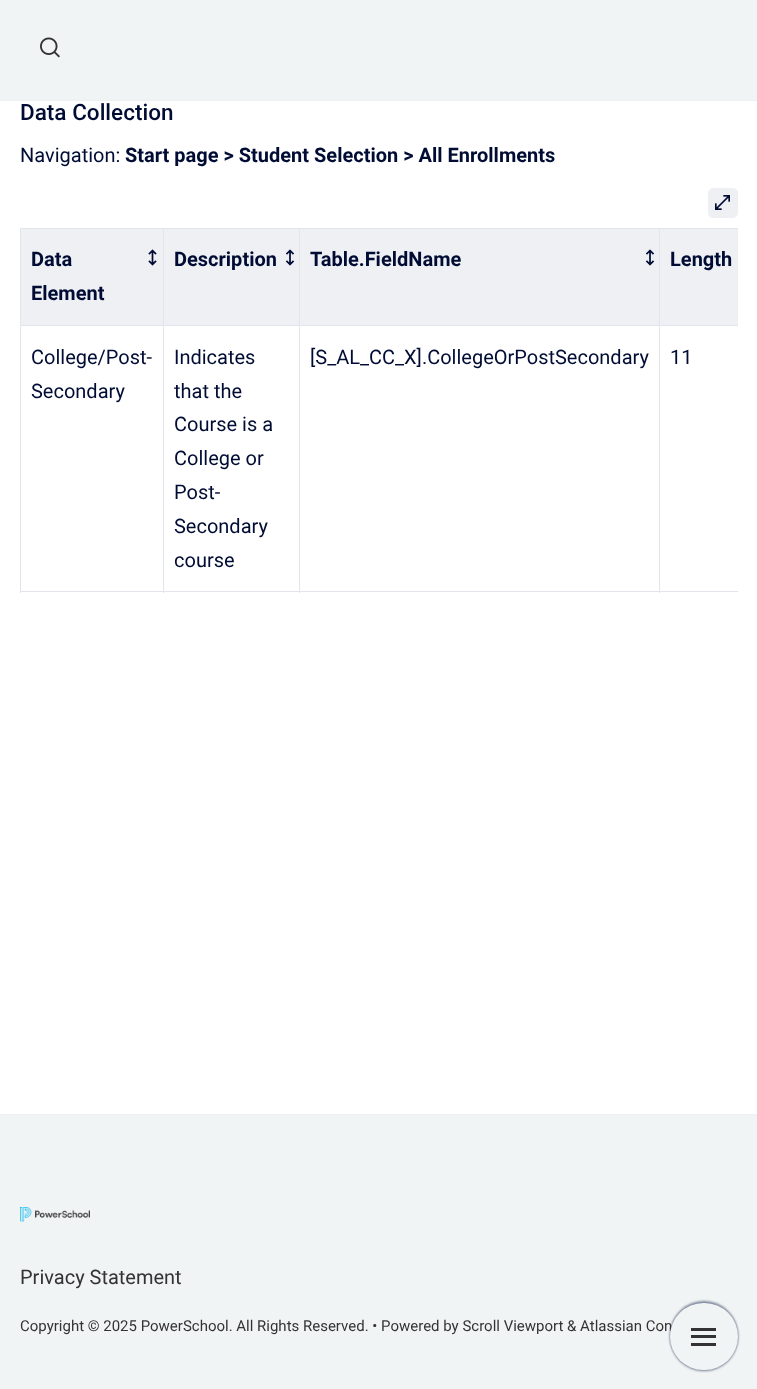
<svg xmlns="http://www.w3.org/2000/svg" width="757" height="1389">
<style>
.a{font:500 22.5px Roboto;fill:#000c34}
.b{font:20px Roboto;fill:#000c34}
.c{font:bold 20px Roboto;fill:#000c34}
.d{font:20px Roboto;fill:#333}
.e{font:15px Roboto;fill:#333}
</style>
<rect width="100%" height="100%" fill="#fff"/>
<path fill="#f1f4f4" d="M0 0h757v100H0z"/>
<path fill="#eff0f4" d="M0 100h757v1H0z"/>
<image href="1.png" x="40" y="37" width="20" height="21"/>
<rect fill="#eff0f4" stroke="#eff0f4" x="708.5" y="188.5" width="29" height="29" rx="4.5"/>
<image href="2.png" x="715" y="195" width="15" height="15"/>
<path fill="#e2e5eb" d="M20 228h718v1H20z"/>
<path fill="#e2e5eb" d="M20 591h718v1H20z"/>
<path fill="#e2e5eb" d="M20 228h1v365H20z"/>
<path fill="#eff0f4" d="M21 229h142v96H21z"/>
<image href="3.png" x="148" y="249" width="9" height="17"/>
<path fill="#eff0f4" d="M164 229h135v96H164z"/>
<image href="4.png" x="285" y="249" width="10" height="17"/>
<path fill="#e2e5eb" d="M659 325h79v1H659z"/>
<path fill="#e2e5eb" d="M659 325h1v268H659z"/>
<path fill="#e2e5eb" d="M299 325h361v1H299z"/>
<path fill="#e2e5eb" d="M299 325h1v268H299z"/>
<path fill="#e2e5eb" d="M163 325h137v1H163z"/>
<path fill="#e2e5eb" d="M163 325h1v268H163z"/>
<path fill="#e2e5eb" d="M20 325h144v1H20z"/>
<path fill="#e2e5eb" d="M163 228h1v98H163z"/>
<path fill="#eff0f4" d="M300 229h359v96H300z"/>
<image href="4.png" x="645" y="249" width="10" height="17"/>
<path fill="#e2e5eb" d="M299 228h1v98H299z"/>
<path fill="#eff0f4" d="M660 229h78v96H660z"/>
<path fill="#e2e5eb" d="M659 228h1v98H659z"/>
<path fill="#f1f4f4" d="M0 1115h757v274H0z"/>
<path fill="#eff0f4" d="M0 1114h757v1H0z"/>
<image href="5.png" x="20" y="1207" width="70" height="15"/>
<rect fill="#7a869a" filter="blur(1px)" x="670" y="1301" width="68" height="68" rx="34"/>
<rect fill="#7a869a" filter="blur(1px)" x="670" y="1304" width="68" height="67" rx="33.5"/>
<text class="a" x="20" y="120">Data Collection</text>
<text class="b" x="20" y="162">Navigation:</text>
<text class="c" x="125" y="162">Start page &gt; Student Selection &gt; All Enrollments</text>
<text class="c" x="31" y="266">Data</text>
<text class="c" x="31" y="300">Element</text>
<text class="c" x="174" y="266">Description</text>
<text class="c" x="310" y="266">Table.FieldName</text>
<text class="c" x="670" y="266">Length</text>
<text class="b" x="31" y="364">College/Post-</text>
<text class="b" x="31" y="398">Secondary</text>
<text class="b" x="174" y="364">Indicates</text>
<text class="b" x="174" y="398">that the</text>
<text class="b" x="174" y="431">Course is a</text>
<text class="b" x="174" y="465">College or</text>
<text class="b" x="174" y="499">Post-</text>
<text class="b" x="174" y="533">Secondary</text>
<text class="b" x="174" y="567">course</text>
<text class="b" x="310" y="364">[S_AL_CC_X].CollegeOrPostSecondary</text>
<text class="b" x="670" y="364">11</text>
<text class="d" x="20" y="1284">Privacy Statement</text>
<text class="e" x="20" y="1331">Copyright © 2025 PowerSchool. All Rights Reserved. • Powered by Scroll Viewport &amp; Atlassian Con</text>
<rect fill="#f1f4f4" x="670" y="1303" width="68" height="67" rx="33.5"/>
<path fill="#333" d="M691 1328h25v3H691z"/>
<path fill="#333" d="M691 1335h25v3H691z"/>
<path fill="#333" d="M691 1343h25v3H691z"/>
</svg>
